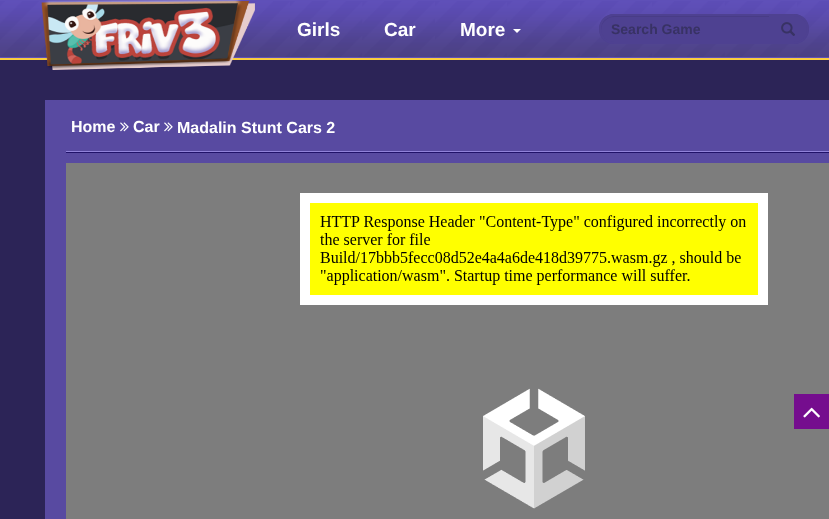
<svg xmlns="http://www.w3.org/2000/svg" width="829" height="519">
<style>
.a{font:bold 19px Liberation Sans;fill:#fff}
.b{font:bold 14px Liberation Sans;fill:#383264}
.c{font:bold 16px Liberation Sans;fill:#fff}
</style>
<rect width="100%" height="100%" fill="#2c2457"/>
<image href="1.png" x="0" y="0" width="829" height="60"/>
<image href="2.png" x="41" y="0" width="214" height="70"/>
<path fill="#fff" d="M513 29h8l-4 4z"/>
<path fill="#4e4191" d="M614 14h156v30h-156c-8.5 0-15-6.5-15-15c0-8.5 6.5-15 15-15z"/>
<path fill="#483c86" d="M614 17h156v-1h-130c-9 0-40-6-39 14c0-7 6-13 13-13z"/>
<path fill="#4e4191" fill-rule="evenodd" d="M614 14h156v30h-156c-8 0-15-7-15-15c0-8 7-15 15-15zm0 2h156v26h-156c-7 0-13-6-13-13c0-7 6-13 13-13z"/>
<path fill="#4e4191" d="M769 14h25c8.5 0 15 6.5 15 15c0 8.5-6.5 15-15 15h-25z"/>
<path fill="#4e4191" fill-rule="evenodd" d="M769 14h25c8 0 15 7 15 15c0 8-7 15-15 15h-25zm0 2h25c7 0 13 6 13 13c0 7-6 13-13 13h-25z"/>
<image href="3.png" x="781" y="22" width="14" height="14"/>
<path fill="#584aa1" d="M45 100h784v419H45z"/>
<path fill="#201269" d="M66 152h763v1H66z"/>
<image href="4.png" x="120" y="122" width="9" height="10"/>
<image href="4.png" x="164" y="122" width="9" height="10"/>
<path fill="#9082d9" d="M66 151h763v1H66z"/>
<image href="5.png" x="66" y="163" width="763" height="356"/>
<path fill="#750d8e" d="M794 394h35v35H794z"/>
<image href="6.png" x="803" y="407" width="17" height="11"/>
<text class="a" x="297" y="36">Girls</text>
<text class="a" x="384" y="36">Car</text>
<text class="a" x="460" y="36">More</text>
<text class="b" x="611" y="34">Search Game</text>
<text class="c" x="71" y="132">Home</text>
<text class="c" x="133" y="132">Car</text>
<text class="c" x="177" y="133">Madalin Stunt Cars 2</text>
</svg>
